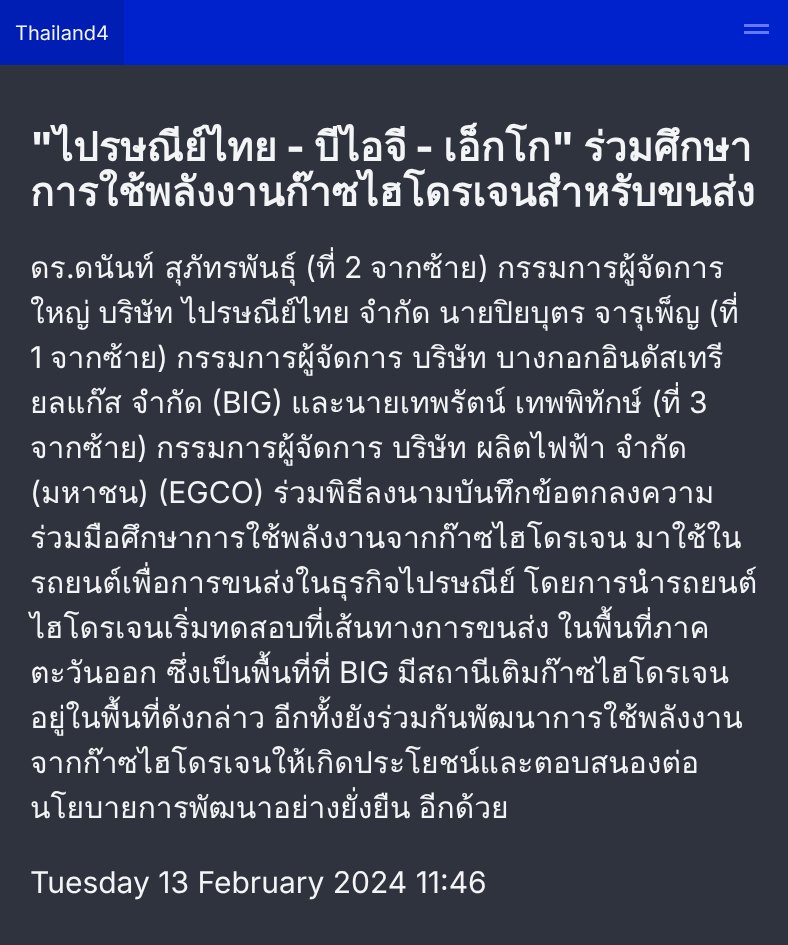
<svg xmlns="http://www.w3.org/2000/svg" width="788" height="945">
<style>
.a{font:20px Inter;fill:#f3f4f6}
.b{font:800 40px Inter;fill:#f3f4f6}
.c{font:bold 40px Loma;fill:#f3f4f6}
.d{font:30px Loma;fill:#f3f4f6}
.e{font:30px Inter;fill:#f3f4f6}
</style>
<rect width="100%" height="100%" fill="#2e333d"/>
<path fill="#02c" d="M124 0h664v65H124z"/>
<path fill="#001eb3" d="M0 0h124v65H0z"/>
<path fill="#6678ff" d="M744 24h25v3H744z"/>
<path fill="#6678ff" d="M744 31h25v3H744z"/>
<text class="a" x="15" y="40">Thailand4</text>
<text class="b" x="30" y="161">"</text>
<text class="c" x="53" y="161">ไปรษณีย์ไทย</text>
<text class="c" x="443" y="161">เอ็กโก</text>
<text class="b" x="551" y="161">"</text>
<text class="c" x="583" y="161">ร่วมศึกษา</text>
<text class="b" x="286" y="161">-</text>
<text class="c" x="314" y="161">บีไอจี</text>
<text class="b" x="415" y="161">-</text>
<text class="c" x="30" y="206">การใช้พลังงานก๊าซไฮโดรเจนสำหรับขนส่ง</text>
<text class="d" x="74" y="278">ดนันท์ สุภัทรพันธุ์</text>
<text class="d" x="370" y="278">จากซ้าย</text>
<text class="d" x="497" y="278">กรรมการผู้จัดการ</text>
<text class="d" x="30" y="278">ดร</text>
<text class="e" x="66" y="278">.</text>
<text class="e" x="305" y="278">(</text>
<text class="d" x="316" y="278">ที่</text>
<text class="e" x="344" y="278">2</text>
<text class="e" x="478" y="278">)</text>
<text class="d" x="30" y="323" word-spacing="-1.5">ใหญ่ บริษัท ไปรษณีย์ไทย จำกัด นายปิยบุตร จารุเพ็ญ</text>
<text class="e" x="708" y="323">(</text>
<text class="d" x="719" y="323">ที่</text>
<text class="e" x="30" y="368">1</text>
<text class="d" x="50" y="368">จากซ้าย</text>
<text class="e" x="157" y="368">)</text>
<text class="d" x="176" y="368" word-spacing="-1">กรรมการผู้จัดการ บริษัท บางกอกอินดัสเทรี</text>
<text class="d" x="30" y="413" word-spacing="-1">ยลแก๊ส จำกัด</text>
<text class="e" x="211" y="413">(BIG)</text>
<text class="d" x="291" y="413" word-spacing="-1">และนายเทพรัตน์ เทพพิทักษ์</text>
<text class="e" x="651" y="413">(</text>
<text class="d" x="661" y="413">ที่</text>
<text class="e" x="689" y="413">3</text>
<text class="d" x="30" y="458">จากซ้าย</text>
<text class="e" x="137" y="458">)</text>
<text class="d" x="156" y="458" word-spacing="-1">กรรมการผู้จัดการ บริษัท ผลิตไฟฟ้า จำกัด</text>
<text class="e" x="30" y="503">(</text>
<text class="d" x="41" y="503">มหาชน</text>
<text class="e" x="138" y="503">) (EGCO)</text>
<text class="d" x="273" y="503">ร่วมพิธีลงนามบันทึกข้อตกลงความ</text>
<text class="d" x="30" y="548" word-spacing="-2">ร่วมมือศึกษาการใช้พลังงานจากก๊าซไฮโดรเจน มาใช้ใน</text>
<text class="d" x="30" y="593" word-spacing="-2">รถยนต์เพื่อการขนส่งในธุรกิจไปรษณีย์ โดยการนำรถยนต์</text>
<text class="d" x="30" y="638" word-spacing="-2">ไฮโดรเจนเริ่มทดสอบที่เส้นทางการขนส่ง ในพื้นที่ภาค</text>
<text class="d" x="30" y="683" word-spacing="-1">ตะวันออก ซึ่งเป็นพื้นที่ที่</text>
<text class="e" x="339" y="683">BIG</text>
<text class="d" x="397" y="683">มีสถานีเติมก๊าซไฮโดรเจน</text>
<text class="d" x="30" y="728" word-spacing="-2">อยู่ในพื้นที่ดังกล่าว อีกทั้งยังร่วมกันพัฒนาการใช้พลังงาน</text>
<text class="d" x="30" y="773">จากก๊าซไฮโดรเจนให้เกิดประโยชน์และตอบสนองต่อ</text>
<text class="d" x="30" y="818" word-spacing="-2">นโยบายการพัฒนาอย่างยั่งยืน อีกด้วย</text>
<text class="e" x="30" y="893">Tuesday 13 February 2024 11:46</text>
</svg>
